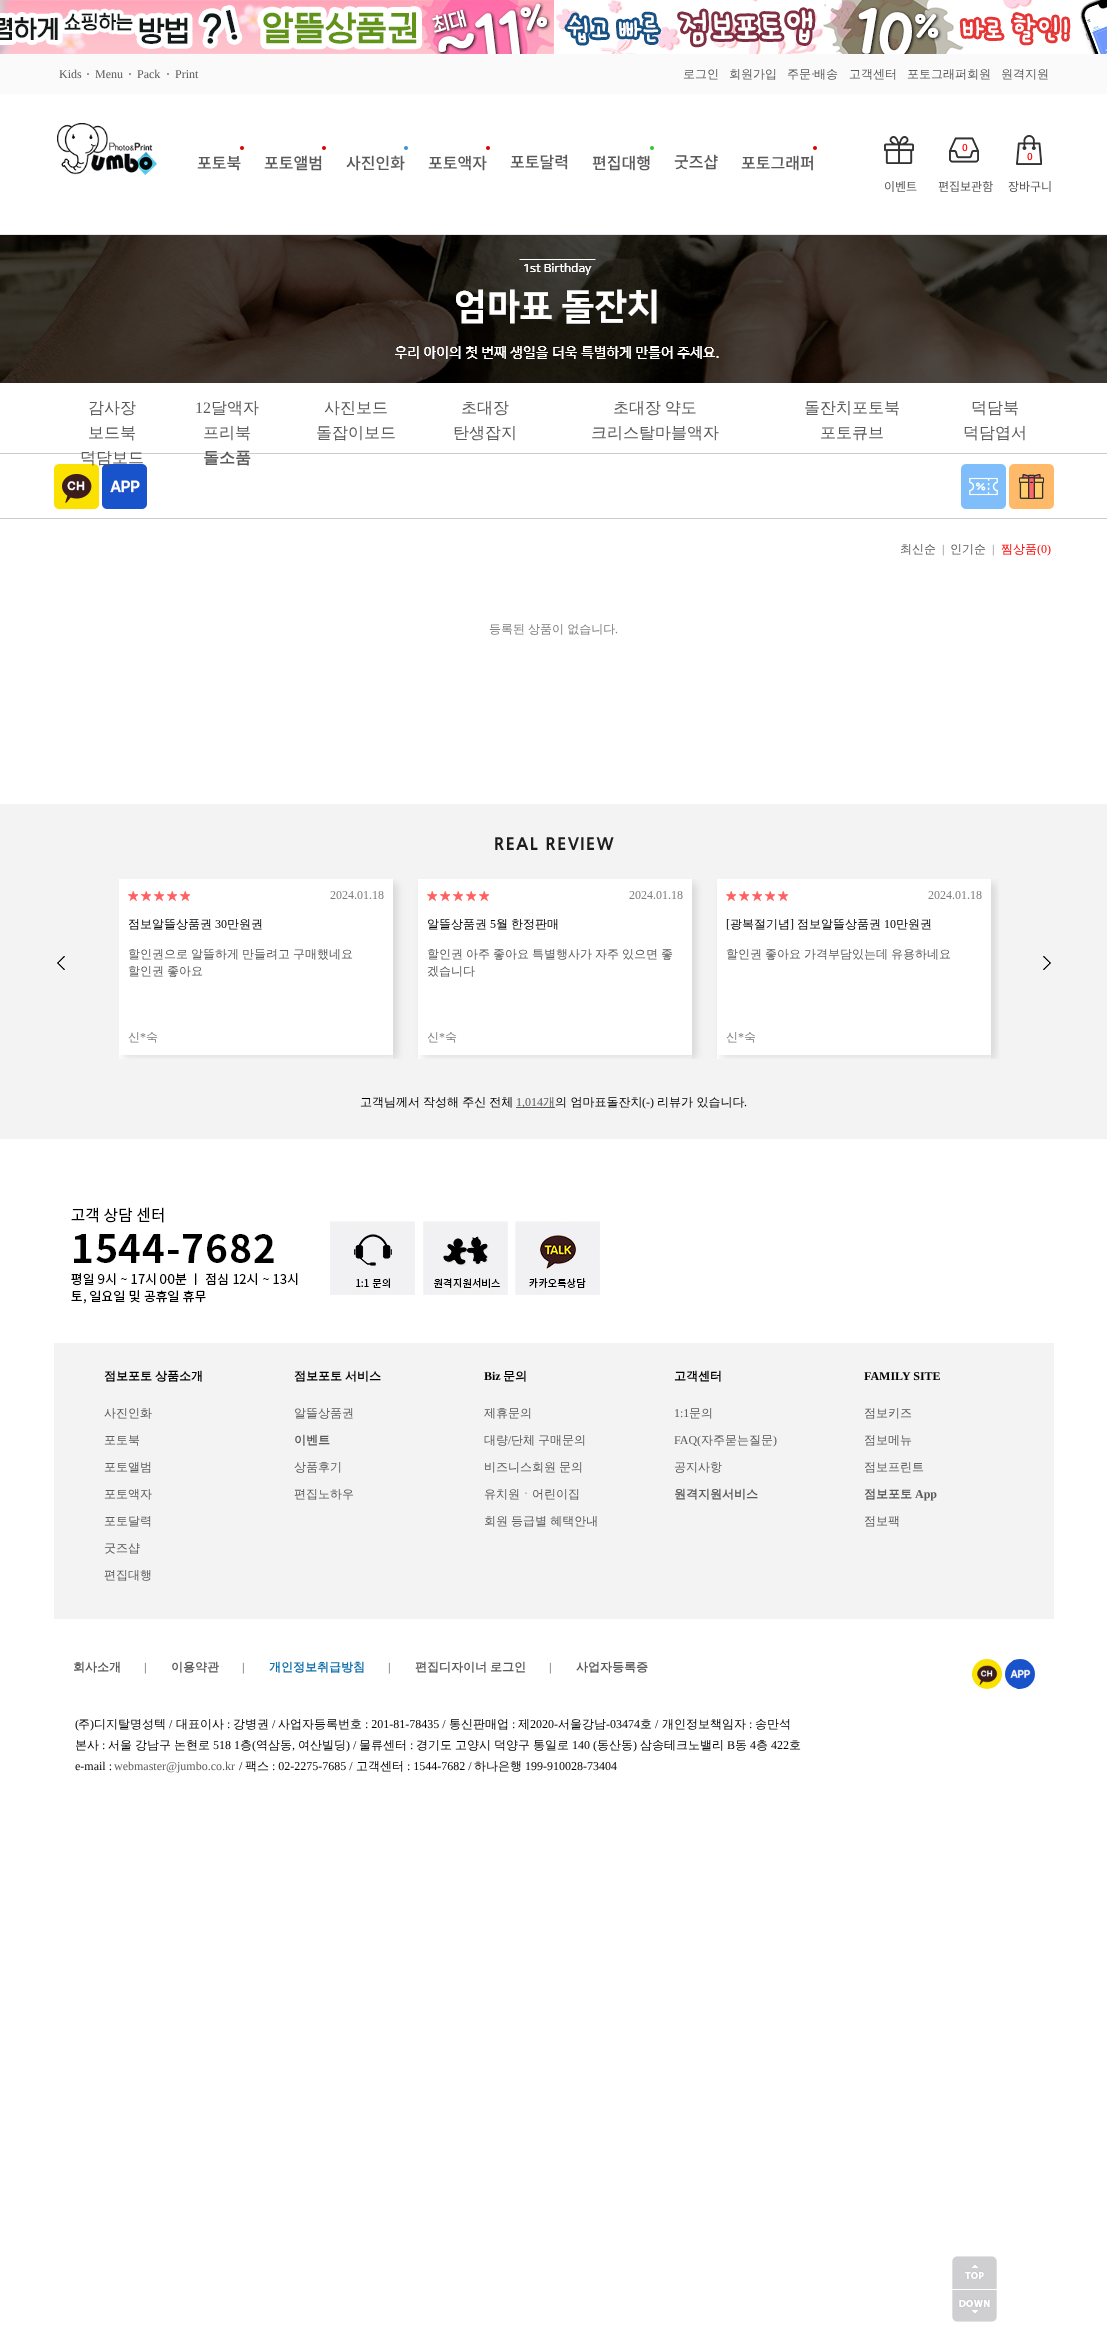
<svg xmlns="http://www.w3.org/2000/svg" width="1107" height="2347">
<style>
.a{font:12px Liberation Serif;fill:#5a5a5a}
.b{font:12px Liberation Serif;fill:#000}
.c{font:500 12px WenQuanYi Zen Hei;fill:#5a5a5a}
.d{font:500 16px Noto Sans KR;fill:#5a5a5a}
.e{font:12px Noto Sans KR;fill:#5a5a5a}
.f{font:500 10px Noto Sans KR;fill:#f00}
.g{font:500 16px WenQuanYi Zen Hei;fill:#5a5a5a}
.h{font:16px Liberation Serif;fill:#5a5a5a}
.i{font:bold 16px WenQuanYi Zen Hei;fill:#5a5a5a}
.j{font:12px Liberation Serif;fill:#7d7d7d}
.k{font:500 12px WenQuanYi Zen Hei;fill:#f00}
.l{font:12px Liberation Serif;fill:#f00}
.m{font:500 12px WenQuanYi Zen Hei;fill:#7d7d7d}
.n{font:500 12px WenQuanYi Zen Hei;fill:#000}
.o{font:bold 12px WenQuanYi Zen Hei;fill:#000}
.p{font:bold 12px Liberation Serif;fill:#000}
.q{font:bold 12px WenQuanYi Zen Hei;fill:#5a5a5a}
.r{font:bold 12px Liberation Serif;fill:#5a5a5a}
.s{font:bold 12px Liberation Serif;fill:#7d7d7d}
.t{font:bold 12px WenQuanYi Zen Hei;fill:#106fac}
</style>
<rect width="100%" height="100%" fill="#fff"/>
<image href="1.png" x="0" y="0" width="1107" height="54"/>
<image href="2.png" x="0" y="54" width="1107" height="181"/>
<image href="3.png" x="57" y="123" width="100" height="52"/>
<circle fill="#d90000" cx="242" cy="148" r="2"/>
<circle fill="#d90000" cx="324" cy="148" r="2"/>
<circle fill="#3b90d2" cx="406" cy="148" r="2"/>
<circle fill="#d90000" cx="488" cy="148" r="2"/>
<circle fill="#2cc737" cx="652" cy="148" r="2"/>
<circle fill="#d90000" cx="815" cy="148" r="2"/>
<image href="4.png" x="884" y="136" width="30" height="28"/>
<image href="5.png" x="949" y="137" width="30" height="26"/>
<image href="6.png" x="1016" y="135" width="26" height="30"/>
<image href="7.png" x="0" y="235" width="1107" height="148"/>
<path fill="#ccc" d="M0 453h1107v1H0z"/>
<path fill="#ccc" d="M0 518h1107v1H0z"/>
<image href="8.png" x="54" y="464" width="45" height="45"/>
<image href="9.png" x="102" y="464" width="45" height="45"/>
<image href="10.png" x="961" y="464" width="45" height="45"/>
<image href="11.png" x="1009" y="464" width="45" height="45"/>
<path fill="#f3f3f3" d="M0 804h1107v335H0z"/>
<image href="12.png" x="495" y="837" width="119" height="13"/>
<image href="13.png" x="57" y="879" width="994" height="180"/>
<path fill="#5a5a5a" d="M516 1107h39v1H516z"/>
<image href="14.png" x="952" y="2256" width="45" height="33"/>
<image href="15.png" x="952" y="2290" width="45" height="32"/>
<image href="16.png" x="71" y="1207" width="227" height="97"/>
<image href="17.png" x="330" y="1221" width="85" height="74"/>
<image href="18.png" x="423" y="1221" width="85" height="74"/>
<image href="19.png" x="515" y="1221" width="85" height="74"/>
<path fill="#f3f3f3" d="M54 1343h1000v276H54z"/>
<image href="20.png" x="972" y="1659" width="30" height="30"/>
<image href="21.png" x="1005" y="1659" width="30" height="30"/>
<text class="a" x="59" y="78">Kids</text>
<text class="b" x="86" y="78">·</text>
<text class="a" x="95" y="78">Menu</text>
<text class="b" x="128" y="78">·</text>
<text class="a" x="137" y="78">Pack</text>
<text class="b" x="166" y="78">·</text>
<text class="a" x="175" y="78">Print</text>
<text class="c" x="683" y="78">로그인</text>
<text class="c" x="729" y="78">회원가입</text>
<text class="c" x="787" y="78">주문</text>
<text class="a" x="811" y="78">·</text>
<text class="c" x="814" y="78">배송</text>
<text class="c" x="849" y="78">고객센터</text>
<text class="c" x="907" y="78">포토그래퍼회원</text>
<text class="c" x="1001" y="78">원격지원</text>
<text class="d" x="197" y="169">포토북</text>
<text class="d" x="264" y="169">포토앨범</text>
<text class="d" x="346" y="169">사진인화</text>
<text class="d" x="428" y="169">포토액자</text>
<text class="d" x="510" y="168">포토달력</text>
<text class="d" x="592" y="169">편집대행</text>
<text class="d" x="674" y="168">굿즈샵</text>
<text class="d" x="741" y="169">포토그래퍼</text>
<text class="e" x="884" y="191">이벤트</text>
<text class="f" x="962" y="151">0</text>
<text class="e" x="938" y="191">편집보관함</text>
<text class="f" x="1027" y="160">0</text>
<text class="e" x="1008" y="191">장바구니</text>
<text class="g" x="88" y="413">감사장</text>
<text class="h" x="195" y="413">12</text>
<text class="g" x="211" y="413">달액자</text>
<text class="g" x="324" y="413">사진보드</text>
<text class="g" x="461" y="413">초대장</text>
<text class="g" x="613" y="413" word-spacing="-1">초대장 약도</text>
<text class="g" x="804" y="413">돌잔치포토북</text>
<text class="g" x="971" y="413">덕담북</text>
<text class="g" x="88" y="438">보드북</text>
<text class="g" x="203" y="438">프리북</text>
<text class="g" x="316" y="438">돌잡이보드</text>
<text class="g" x="453" y="438">탄생잡지</text>
<text class="g" x="591" y="438">크리스탈마블액자</text>
<text class="g" x="820" y="438">포토큐브</text>
<text class="g" x="963" y="438">덕담엽서</text>
<text class="g" x="80" y="463">덕담보드</text>
<text class="i" x="203" y="463">돌소품</text>
<text class="c" x="900" y="553">최신순</text>
<text class="j" x="942" y="553">|</text>
<text class="c" x="950" y="553">인기순</text>
<text class="j" x="992" y="553">|</text>
<text class="k" x="1001" y="553">찜상품</text>
<text class="l" x="1037" y="553">(0)</text>
<text class="m" x="489" y="633" word-spacing="-0.5">등록된 상품이 없습니다</text>
<text class="j" x="615" y="633">.</text>
<text class="n" x="360" y="1106" word-spacing="-0.5">고객님께서 작성해 주신 전체</text>
<text class="a" x="516" y="1106">1,014</text>
<text class="c" x="543" y="1106">개</text>
<text class="n" x="555" y="1106">의 엄마표돌잔치</text>
<text class="b" x="642" y="1106">(-)</text>
<text class="n" x="657" y="1106">리뷰가 있습니다</text>
<text class="b" x="744" y="1106">.</text>
<text class="o" x="104" y="1380" word-spacing="-0.5">점보포토 상품소개</text>
<text class="o" x="294" y="1380" word-spacing="-0.5">점보포토 서비스</text>
<text class="p" x="484" y="1380">Biz</text>
<text class="o" x="503" y="1380">문의</text>
<text class="o" x="674" y="1380">고객센터</text>
<text class="p" x="864" y="1380">FAMILY SITE</text>
<text class="c" x="104" y="1417">사진인화</text>
<text class="c" x="294" y="1417">알뜰상품권</text>
<text class="c" x="484" y="1417">제휴문의</text>
<text class="a" x="674" y="1417">1:1</text>
<text class="c" x="689" y="1417">문의</text>
<text class="c" x="864" y="1417">점보키즈</text>
<text class="c" x="104" y="1444">포토북</text>
<text class="q" x="294" y="1444">이벤트</text>
<text class="c" x="484" y="1444">대량</text>
<text class="a" x="508" y="1444">/</text>
<text class="c" x="511" y="1444" word-spacing="-0.5">단체 구매문의</text>
<text class="a" x="674" y="1444">FAQ(</text>
<text class="c" x="701" y="1444">자주묻는질문</text>
<text class="a" x="773" y="1444">)</text>
<text class="c" x="864" y="1444">점보메뉴</text>
<text class="c" x="104" y="1471">포토앨범</text>
<text class="c" x="294" y="1471">상품후기</text>
<text class="c" x="484" y="1471" word-spacing="-0.5">비즈니스회원 문의</text>
<text class="c" x="674" y="1471">공지사항</text>
<text class="c" x="864" y="1471">점보프린트</text>
<text class="c" x="104" y="1498">포토액자</text>
<text class="c" x="294" y="1498">편집노하우</text>
<text class="c" x="484" y="1498">유치원ㆍ어린이집</text>
<text class="q" x="674" y="1498">원격지원서비스</text>
<text class="q" x="864" y="1498">점보포토</text>
<text class="r" x="915" y="1498">App</text>
<text class="c" x="104" y="1525">포토달력</text>
<text class="c" x="484" y="1525" word-spacing="-0.5">회원 등급별 혜택안내</text>
<text class="c" x="864" y="1525">점보팩</text>
<text class="c" x="104" y="1552">굿즈샵</text>
<text class="c" x="104" y="1579">편집대행</text>
<text class="q" x="73" y="1671">회사소개</text>
<text class="s" x="144" y="1671">|</text>
<text class="q" x="171" y="1671">이용약관</text>
<text class="s" x="242" y="1671">|</text>
<text class="t" x="269" y="1671">개인정보취급방침</text>
<text class="s" x="388" y="1671">|</text>
<text class="q" x="415" y="1671" word-spacing="-0.5">편집디자이너 로그인</text>
<text class="s" x="549" y="1671">|</text>
<text class="q" x="576" y="1671">사업자등록증</text>
<text class="b" x="75" y="1728">(</text>
<text class="n" x="78" y="1728">주</text>
<text class="b" x="90" y="1728">)</text>
<text class="n" x="94" y="1728">디지탈명성텍</text>
<text class="b" x="169" y="1728">/</text>
<text class="n" x="176" y="1728">대표이사</text>
<text class="b" x="227" y="1728">:</text>
<text class="n" x="233" y="1728">강병권</text>
<text class="b" x="272" y="1728">/</text>
<text class="n" x="278" y="1728">사업자등록번호</text>
<text class="b" x="365" y="1728">: 201-81-78435 /</text>
<text class="n" x="449" y="1728">통신판매업</text>
<text class="b" x="512" y="1728">:</text>
<text class="n" x="518" y="1728">제</text>
<text class="b" x="530" y="1728">2020-</text>
<text class="n" x="558" y="1728">서울강남</text>
<text class="b" x="606" y="1728">-03474</text>
<text class="n" x="640" y="1728">호</text>
<text class="b" x="655" y="1728">/</text>
<text class="n" x="662" y="1728">개인정보책임자</text>
<text class="b" x="749" y="1728">:</text>
<text class="n" x="755" y="1728">송만석</text>
<text class="n" x="75" y="1749">본사</text>
<text class="b" x="102" y="1749">:</text>
<text class="n" x="108" y="1749">서울</text>
<text class="n" x="135" y="1749">강남구</text>
<text class="n" x="174" y="1749">논현로</text>
<text class="b" x="213" y="1749">518 1</text>
<text class="n" x="240" y="1749">층</text>
<text class="b" x="252" y="1749">(</text>
<text class="n" x="256" y="1749">역삼동</text>
<text class="b" x="292" y="1749">,</text>
<text class="n" x="298" y="1749">여산빌딩</text>
<text class="b" x="346" y="1749">) /</text>
<text class="n" x="359" y="1749">물류센터</text>
<text class="b" x="410" y="1749">:</text>
<text class="n" x="416" y="1749">경기도</text>
<text class="n" x="455" y="1749">고양시</text>
<text class="n" x="494" y="1749">덕양구</text>
<text class="n" x="533" y="1749">통일로</text>
<text class="b" x="572" y="1749">140 (</text>
<text class="n" x="597" y="1749">동산동</text>
<text class="b" x="633" y="1749">)</text>
<text class="n" x="640" y="1749">삼송테크노밸리</text>
<text class="b" x="727" y="1749">B</text>
<text class="n" x="735" y="1749">동</text>
<text class="b" x="750" y="1749">4</text>
<text class="n" x="756" y="1749">층</text>
<text class="b" x="771" y="1749">422</text>
<text class="n" x="789" y="1749">호</text>
<text class="b" x="75" y="1770">e-mail :</text>
<text class="a" x="114" y="1770">webmaster@jumbo.co.kr</text>
<text class="b" x="239" y="1770">/</text>
<text class="n" x="245" y="1770">팩스</text>
<text class="b" x="272" y="1770">: 02-2275-7685 /</text>
<text class="n" x="356" y="1770">고객센터</text>
<text class="b" x="407" y="1770">: 1544-7682 /</text>
<text class="n" x="474" y="1770">하나은행</text>
<text class="b" x="525" y="1770">199-910028-73404</text>
</svg>
